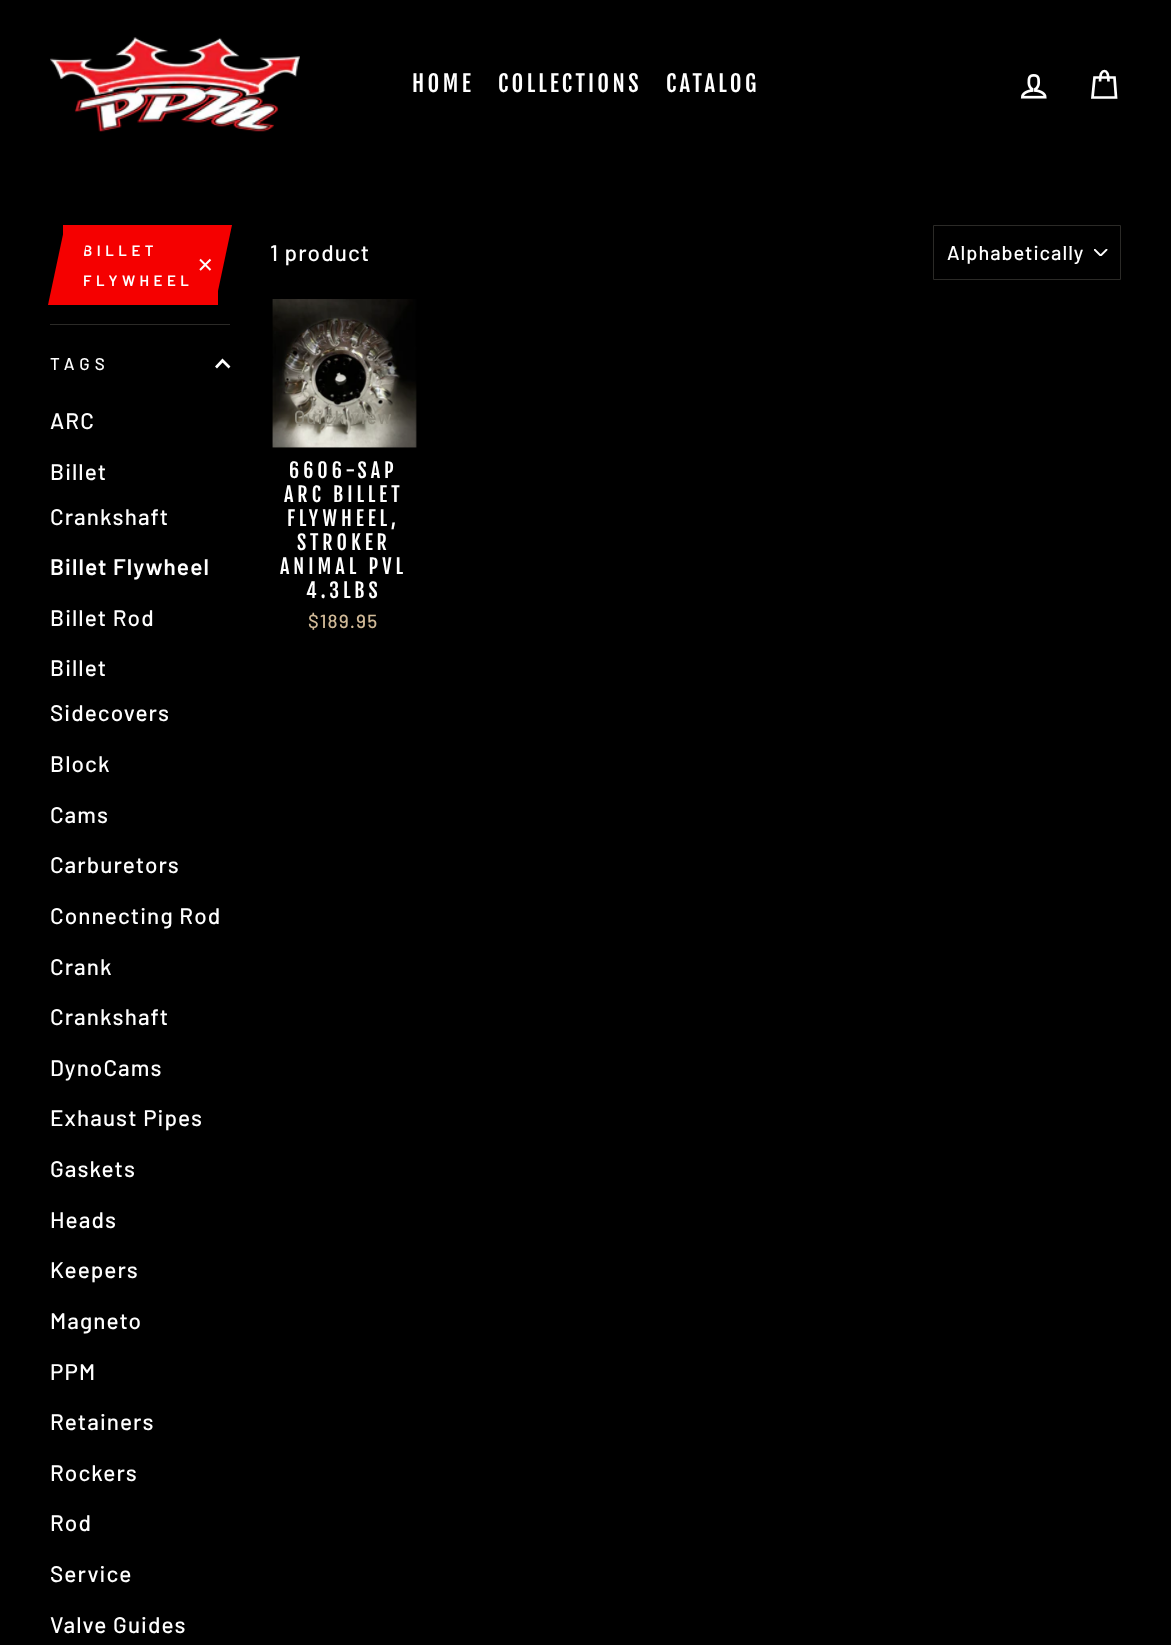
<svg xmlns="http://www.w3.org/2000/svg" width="1171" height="1645">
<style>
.a{font:22.5px Fjalla One;letter-spacing:3.4px;fill:#fff}
.b{font:600 15px Barlow;letter-spacing:4.5px;fill:#fff}
.c{font:500 17px Barlow;letter-spacing:5px;fill:#fff}
.d{font:500 22.5px Barlow;letter-spacing:1.1px;fill:#fff}
.e{font:600 22.5px Barlow;letter-spacing:1.1px;fill:#fff}
.f{font:500 20px Barlow;letter-spacing:1px;fill:#fff}
.g{font:500 19px Barlow;letter-spacing:1.1px;fill:#8f8c7f}
.h{font:20px Fjalla One;letter-spacing:4px;fill:#fff}
.i{font:500 19px Barlow;letter-spacing:1.1px;fill:#d1ba98}
</style>
<rect width="100%" height="100%" fill="#000"/>
<image href="1.png" x="50" y="37" width="250" height="95"/>
<image href="2.png" x="1020" y="74" width="27" height="25"/>
<path fill="none" stroke="#fff" stroke-width="2.7" d="M1100 81.5c0-8.5 2-10.5 4.5-10.5c2 0 4 2 4 10.5m-14-4h20l1.5 20h-23.5z"/>
<path fill="#f50000" d="M63 225h155v80H63z"/>
<path fill="#f50000" d="M207 225h25l-17 80h-25z"/>
<path fill="none" stroke="#fff" stroke-width="2" d="M200 259.5l10.5 10.5m0-10.5l-10.5 10.5"/>
<path fill="#2b2a27" d="M50 324h180v1H50z"/>
<path fill="none" stroke="#fff" stroke-width="2.7" d="M216 367.5l6.5-7l7 7"/>
<image href="3.png" x="1094" y="249" width="14" height="7"/>
<path fill="none" stroke="#2b2a27" d="M933.5 225.5h187v54H933.5z"/>
<image href="4.png" x="272" y="299" width="145" height="149"/>
<text class="a" x="412" y="92">HOME</text>
<text class="a" x="498" y="92">COLLECTIONS</text>
<text class="a" x="666" y="92">CATALOG</text>
<text class="b" x="83" y="256">BILLET</text>
<text class="b" x="83" y="286">FLYWHEEL</text>
<path fill="#f50000" d="M65 225h25l-17 80h-25z"/>
<text class="c" x="50" y="370">TAGS</text>
<text class="d" x="50" y="429">ARC</text>
<text class="d" x="50" y="480">Billet</text>
<text class="d" x="50" y="525">Crankshaft</text>
<text class="e" x="50" y="575">Billet Flywheel</text>
<text class="d" x="50" y="626">Billet Rod</text>
<text class="d" x="50" y="676">Billet</text>
<text class="d" x="50" y="721">Sidecovers</text>
<text class="d" x="50" y="772">Block</text>
<text class="d" x="50" y="823">Cams</text>
<text class="d" x="50" y="873">Carburetors</text>
<text class="d" x="50" y="924">Connecting Rod</text>
<text class="d" x="50" y="975">Crank</text>
<text class="d" x="50" y="1025">Crankshaft</text>
<text class="d" x="50" y="1076">DynoCams</text>
<text class="d" x="50" y="1126">Exhaust Pipes</text>
<text class="d" x="50" y="1177">Gaskets</text>
<text class="d" x="50" y="1228">Heads</text>
<text class="d" x="50" y="1278">Keepers</text>
<text class="d" x="50" y="1329">Magneto</text>
<text class="d" x="50" y="1380">PPM</text>
<text class="d" x="50" y="1430">Retainers</text>
<text class="d" x="50" y="1481">Rockers</text>
<text class="d" x="50" y="1531">Rod</text>
<text class="d" x="50" y="1582">Service</text>
<text class="d" x="50" y="1633">Valve Guides</text>
<text class="d" x="270" y="261">1 product</text>
<text class="f" x="947" y="260">Alphabetically</text>
<text class="g" x="294" y="424">Quick view</text>
<text class="h" x="289" y="478">6606-SAP</text>
<text class="h" x="284" y="502">ARC BILLET</text>
<text class="h" x="287" y="526">FLYWHEEL,</text>
<text class="h" x="297" y="550">STROKER</text>
<text class="h" x="280" y="574">ANIMAL PVL</text>
<text class="h" x="306" y="598">4.3LBS</text>
<text class="i" x="308" y="628">$189.95</text>
</svg>
